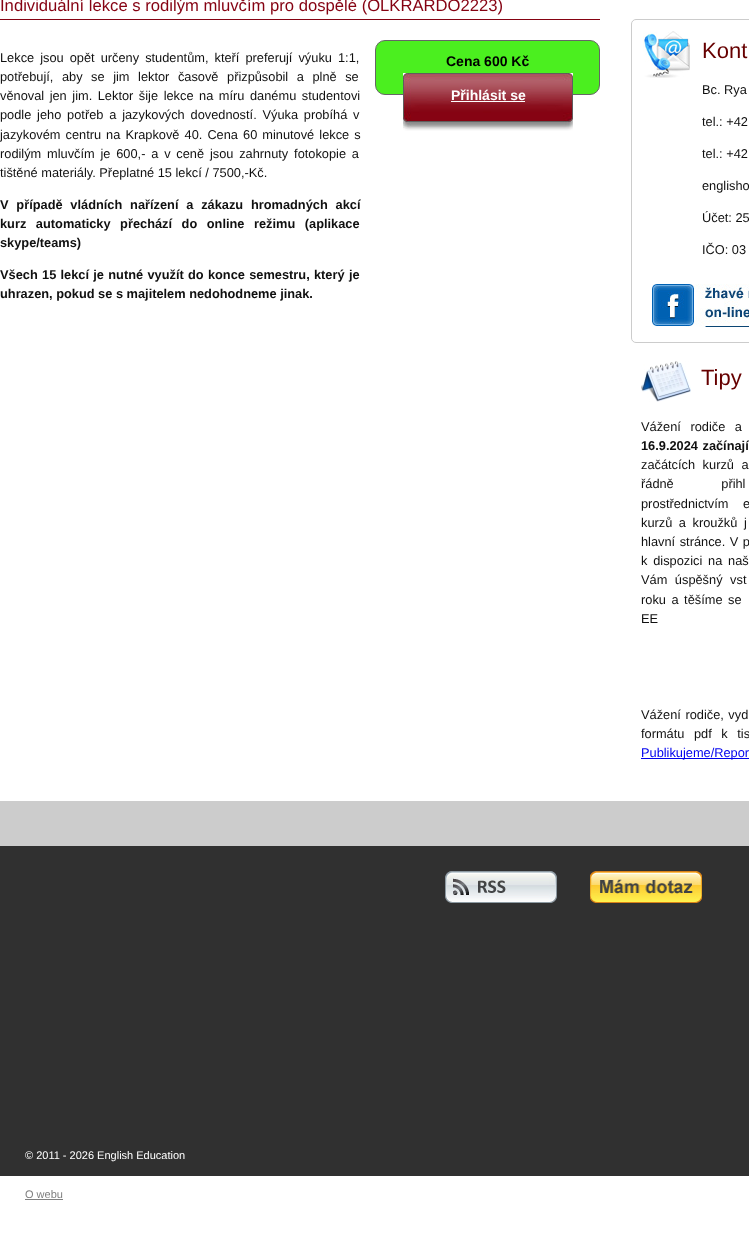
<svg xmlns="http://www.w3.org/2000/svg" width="749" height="1233">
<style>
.a{font:16.65px Liberation Sans;fill:#850212}
.b{font:12.8px Liberation Sans;fill:#101010}
.c{font:bold 12.8px Liberation Sans;fill:#101010}
.d{font:bold 14px Liberation Sans;fill:#000}
.e{font:bold 14px Liberation Sans;fill:#fff}
.f{font:22px Liberation Sans;fill:#600}
.g{font:12.8px Liberation Sans;fill:#00e}
.h{font:11px Liberation Sans;fill:#fff}
.i{font:11px Liberation Sans;fill:#808080}
</style>
<rect width="100%" height="100%" fill="#fff"/>
<path fill="#850212" d="M0 19h600v1H0z"/>
<rect fill="#4bef1f" stroke="#666" x="375.5" y="40.5" width="224" height="54" rx="9.5"/>
<image href="1.png" x="403" y="73" width="170" height="58"/>
<path fill="#fff" d="M451 101h74v1H451z"/>
<rect fill="none" stroke="#ccc" x="631.5" y="19.5" width="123" height="323" rx="4.5"/>
<image href="2.png" x="643" y="31" width="47" height="47"/>
<image href="3.png" x="652" y="284" width="97" height="43"/>
<image href="4.png" x="641" y="361" width="50" height="41"/>
<path fill="#00e" d="M641 758h108v1H641z"/>
<path fill="#303030" d="M0 846h749v330H0z"/>
<path fill="#ccc" d="M0 801h749v45H0z"/>
<image href="5.png" x="445" y="871" width="112" height="32"/>
<image href="6.png" x="590" y="871" width="112" height="32"/>
<path fill="#808080" d="M25 1199h38v1H25z"/>
<text class="a" x="0" y="11">Individuální lekce s rodilým mluvčím pro dospělé (OLKRARDO2223)</text>
<text class="b" x="0" y="62" word-spacing="2.5">Lekce jsou opět určeny studentům, kteří preferují výuku 1:1,</text>
<text class="b" x="0" y="81" word-spacing="5">potřebují, aby se jim lektor časově přizpůsobil a plně se</text>
<text class="b" x="0" y="100" word-spacing="2">věnoval jen jim. Lektor šije lekce na míru danému studentovi</text>
<text class="b" x="0" y="119" word-spacing="2.25">podle jeho potřeb a jazykových dovedností. Výuka probíhá v</text>
<text class="b" x="0" y="139" word-spacing="1.5">jazykovém centru na Krapkově 40. Cena 60 minutové lekce s</text>
<text class="b" x="0" y="158" word-spacing="2.25">rodilým mluvčím je 600,- a v ceně jsou zahrnuty fotokopie a</text>
<text class="b" x="0" y="177">tištěné materiály. Přeplatné 15 lekcí / 7500,-Kč.</text>
<text class="c" x="0" y="209" word-spacing="4.25">V případě vládních nařízení a zákazu hromadných akcí</text>
<text class="c" x="0" y="228" word-spacing="6">kurz automaticky přechází do online režimu (aplikace</text>
<text class="c" x="0" y="247">skype/teams)</text>
<text class="c" x="0" y="279" word-spacing="0.75">Všech 15 lekcí je nutné využít do konce semestru, který je</text>
<text class="c" x="0" y="298">uhrazen, pokud se s majitelem nedohodneme jinak.</text>
<text class="d" x="446" y="66">Cena 600 Kč</text>
<text class="e" x="451" y="100">Přihlásit se</text>
<text class="f" x="702" y="58">Kont</text>
<text class="b" x="702" y="94">Bc. Rya</text>
<text class="b" x="702" y="126">tel.: +42</text>
<text class="b" x="702" y="158">tel.: +42</text>
<text class="b" x="702" y="190">englisho</text>
<text class="b" x="702" y="222">Účet: 25</text>
<text class="b" x="702" y="254">IČO: 03</text>
<text class="f" x="701" y="385">Tipy</text>
<text class="b" x="641" y="431" word-spacing="6">Vážení rodiče a</text>
<text class="c" x="641" y="450" word-spacing="1">16.9.2024 začínají</text>
<text class="b" x="641" y="469" word-spacing="4">začátcích kurzů a</text>
<text class="b" x="641" y="488" word-spacing="44">řádně přihl</text>
<text class="b" x="641" y="508" word-spacing="11">prostřednictvím e</text>
<text class="b" x="641" y="527" word-spacing="3">kurzů a kroužků j</text>
<text class="b" x="641" y="546" word-spacing="1">hlavní stránce. V p</text>
<text class="b" x="641" y="565" word-spacing="2.25">k dispozici na naš</text>
<text class="b" x="641" y="584" word-spacing="4">Vám úspěšný vst</text>
<text class="b" x="641" y="604" word-spacing="2">roku a těšíme se</text>
<text class="b" x="641" y="623">EE</text>
<text class="b" x="641" y="719" word-spacing="1">Vážení rodiče, vyd</text>
<text class="b" x="641" y="738" word-spacing="6">formátu pdf k tis</text>
<text class="g" x="641" y="757">Publikujeme/Repor</text>
<text class="h" x="25" y="1159">© 2011 - 2026 English Education</text>
<text class="i" x="25" y="1198">O webu</text>
</svg>
